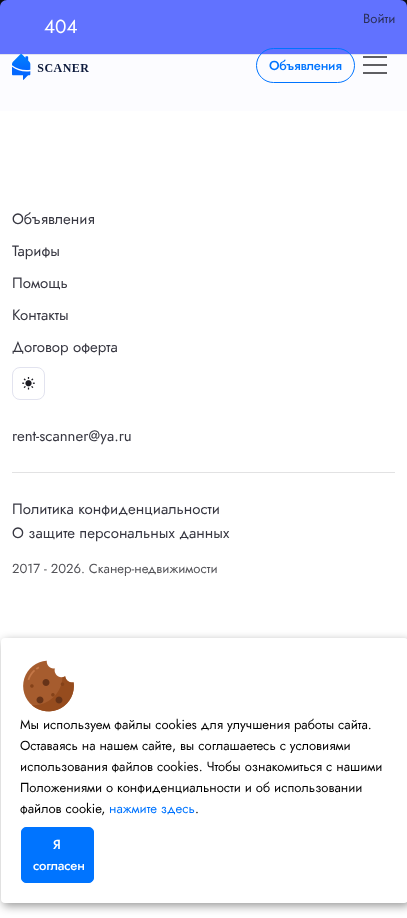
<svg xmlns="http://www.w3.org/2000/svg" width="407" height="918">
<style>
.a{font:19px Jost;fill:#fff}
.b{font:13.1px Jost;fill:#2b2f58}
.c{font:500 13.1px Jost;letter-spacing:-0.25px;fill:#0074ff}
.d{font:15px Jost;fill:#373741}
.e{font:13.1px Jost;fill:#535358}
.f{font:13.1px Jost;fill:#000}
.g{font:13.1px Jost;fill:#0074ff}
.h{font:500 13.1px Jost;letter-spacing:-0.25px;fill:#fff}
</style>
<rect width="100%" height="100%" fill="#fff"/>
<path fill="#0b0b0f" d="M0 0h407v7H0z"/>
<path fill="#6172ff" d="M7 0h393c4 0 7 3 7 7v48h-407v-48c0-4 3-7 7-7z"/>
<path fill="#e2e3ef" d="M0 54h407v1H0z"/>
<path fill="#fcfcff" d="M0 55h407v56H0z"/>
<image href="1.png" x="12" y="54" width="77" height="26"/>
<rect fill="none" stroke="#0074ff" x="256.5" y="48.5" width="98" height="34" rx="17"/>
<path fill="#5f5f63" d="M363 64h24v2H363z"/>
<path fill="#5f5f63" d="M363 56h24v2H363z"/>
<path fill="#5f5f63" d="M363 72h24v2H363z"/>
<rect fill="none" stroke="#e2e3ef" x="12.5" y="367.5" width="32" height="32" rx="7.5"/>
<image href="2.png" x="22" y="377" width="13" height="13"/>
<path fill="#e2e2e3" d="M12 472h383v1H12z"/>
<rect fill="#00000066" filter="blur(5px)" x="3" y="641" width="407" height="265" rx="4"/>
<rect fill="#fff" x="1" y="638" width="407" height="265" rx="4"/>
<image href="3.png" x="23" y="660" width="51" height="52"/>
<rect fill="#0074ff" stroke="#0074ff" x="21.5" y="827.5" width="72" height="55" rx="4.5"/>
<text class="a" x="44" y="33">404</text>
<text class="b" x="363" y="23">Войти</text>
<text class="c" x="269" y="70">Объявления</text>
<text class="d" x="12" y="224">Объявления</text>
<text class="d" x="12" y="256">Тарифы</text>
<text class="d" x="12" y="288">Помощь</text>
<text class="d" x="12" y="320">Контакты</text>
<text class="d" x="12" y="352">Договор оферта</text>
<text class="d" x="12" y="441">rent-scanner@ya.ru</text>
<text class="d" x="12" y="514">Политика конфиденциальности</text>
<text class="d" x="12" y="538">О защите персональных данных</text>
<text class="e" x="12" y="573">2017 - 2026. Сканер-недвижимости</text>
<text class="f" x="20" y="729">Мы используем файлы cookies для улучшения работы сайта.</text>
<text class="f" x="20" y="750">Оставаясь на нашем сайте, вы соглашаетесь с условиями</text>
<text class="f" x="20" y="771">использования файлов cookies. Чтобы ознакомиться с нашими</text>
<text class="f" x="20" y="792">Положениями о конфиденциальности и об использовании</text>
<text class="f" x="20" y="813">файлов cookie,</text>
<text class="g" x="109" y="813">нажмите здесь</text>
<text class="f" x="195" y="813">.</text>
<text class="h" x="53" y="849">Я</text>
<text class="h" x="33" y="870">согласен</text>
</svg>
